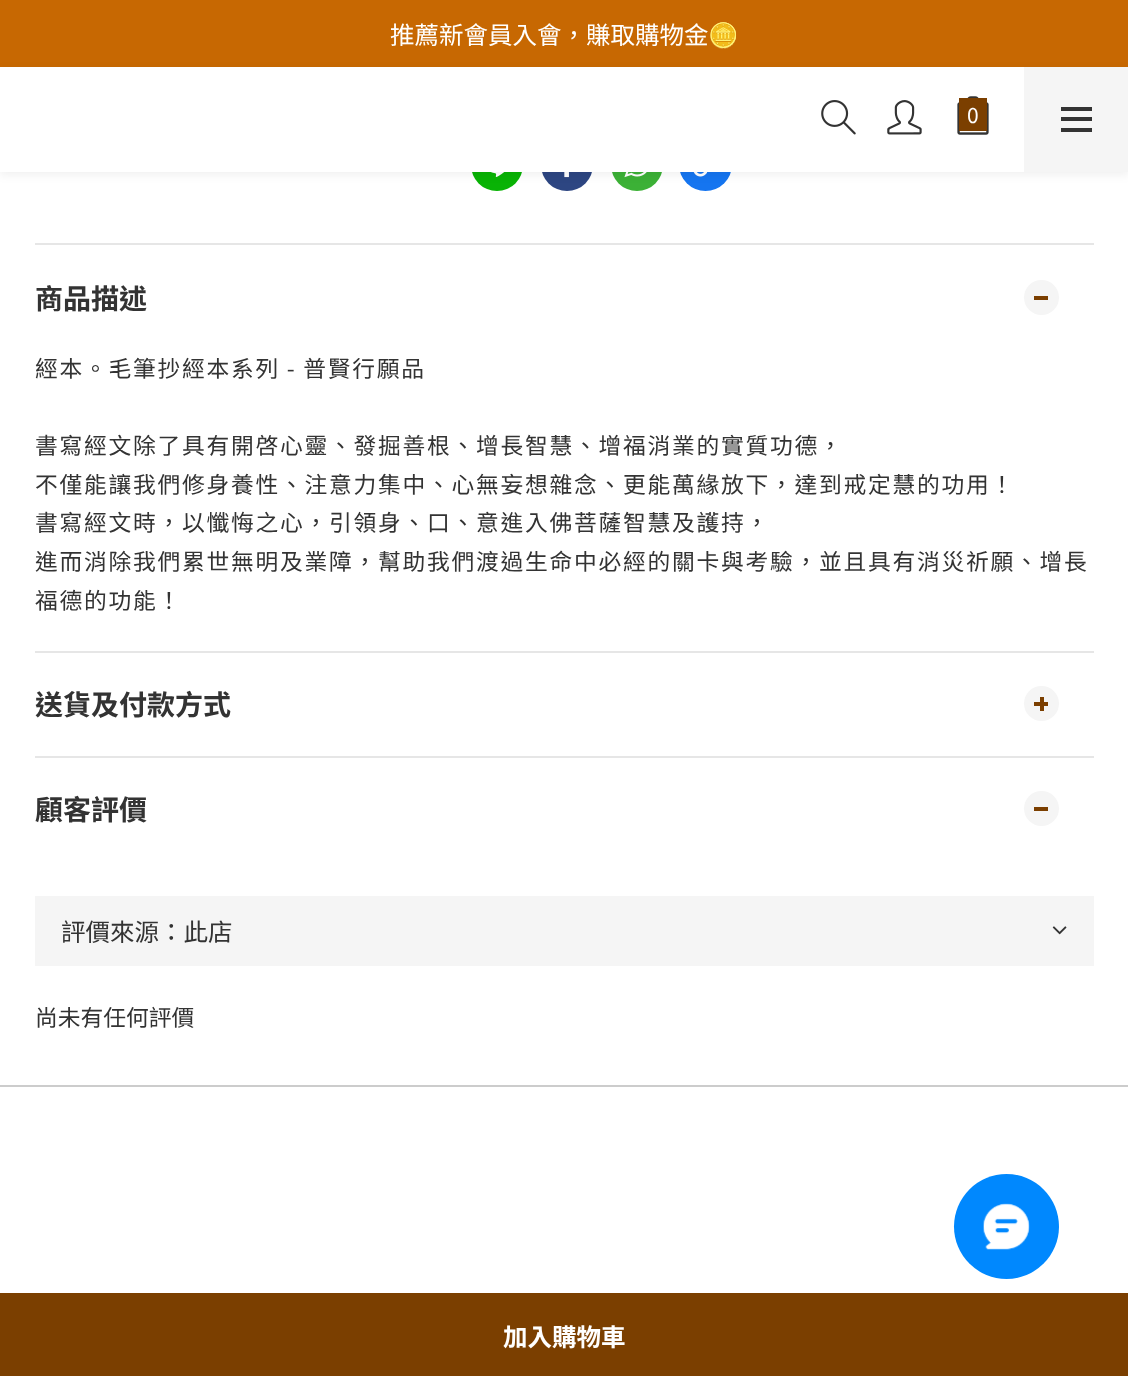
<svg xmlns="http://www.w3.org/2000/svg" width="1128" height="1376">
<style>
.a{font:24.5px Noto Sans TC;fill:#fff}
.b{font:24.5px Noto Color Emoji;fill:#fff}
.c{font:21px Noto Sans TC;fill:#fff}
.d{font:bold 28px Noto Sans TC;fill:#333}
.e{font:22.75px Noto Sans TC;letter-spacing:1.75px;fill:#333}
.f{font:24.5px Noto Sans TC;fill:#333}
.g{font:22.75px Noto Sans TC;fill:#333}
.h{font:bold 24.5px Noto Sans TC;fill:#fff}
</style>
<rect width="100%" height="100%" fill="#fff"/>
<path fill="#c76802" d="M0 0h1128v67H0z"/>
<rect fill="#09b305" x="471" y="138" width="52" height="53" rx="26"/>
<image href="4.png" x="491" y="172" width="14" height="5"/>
<rect fill="#2d4682" x="541" y="138" width="52" height="53" rx="26"/>
<image href="5.png" x="564" y="172" width="5" height="6"/>
<rect fill="#3cb136" x="611" y="138" width="52" height="53" rx="26"/>
<image href="6.png" x="624" y="172" width="23" height="6"/>
<circle fill="#1575f0" cx="705.5" cy="164.5" r="26.5"/>
<image href="7.png" x="693" y="172" width="15" height="5"/>
<path fill="#0000000f" filter="blur(5px)" d="M0 70h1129v105H0z"/>
<path fill="#fff" d="M0 67h1024v105H0z"/>
<image href="1.png" x="821" y="100" width="35" height="35"/>
<image href="2.png" x="887" y="100" width="35" height="35"/>
<image href="3.png" x="957" y="96" width="32" height="39"/>
<path fill="#7b3f00" d="M959 98h28v33H959z"/>
<path fill="#f5f5f5" d="M1024 67h104v105H1024z"/>
<path fill="#333" d="M1061 117h31v4H1061z"/>
<path fill="#333" d="M1061 107h31v4H1061z"/>
<path fill="#333" d="M1061 128h31v4H1061z"/>
<path fill="#e6e6e6" d="M35 243h1059v2H35z"/>
<circle fill="#f5f5f5" cx="1041.5" cy="297.5" r="17.5"/>
<path fill="#7b3f00" d="M1034 296h14v4H1034z"/>
<path fill="#e6e6e6" d="M35 651h1059v2H35z"/>
<circle fill="#f5f5f5" cx="1041.5" cy="703.5" r="17.5"/>
<path fill="#7b3f00" d="M1034 702h14v4H1034z"/>
<path fill="#7b3f00" d="M1040 697h4v14H1040z"/>
<path fill="#e6e6e6" d="M35 756h1059v2H35z"/>
<circle fill="#f5f5f5" cx="1041.5" cy="808.5" r="17.5"/>
<path fill="#7b3f00" d="M1034 807h14v4H1034z"/>
<path fill="#f5f5f5" d="M35 896h1059v70H35z"/>
<image href="8.png" x="1052" y="926" width="15" height="9"/>
<path fill="#7b3f00" d="M0 1293h1128v83H0z"/>
<path fill="#ccc" d="M0 1085h1128v2H0z"/>
<circle fill="#0088fe" cx="1006.5" cy="1226.5" r="52.5"/>
<image href="9.png" x="983" y="1203" width="47" height="47"/>
<text class="a" x="390" y="44">推薦新會員入會，賺取購物金</text>
<text class="b" x="708" y="44">🪙</text>
<text class="c" x="967" y="123">0</text>
<text class="d" x="35" y="309">商品描述</text>
<text class="e" x="35" y="377">經本。毛筆抄經本系列 - 普賢行願品</text>
<text class="e" x="35" y="454">書寫經文除了具有開啓心靈、發掘善根、增長智慧、增福消業的實質功德，</text>
<text class="e" x="35" y="493">不僅能讓我們修身養性、注意力集中、心無妄想雜念、更能萬緣放下，達到戒定慧的功用！</text>
<text class="e" x="35" y="531">書寫經文時，以懺悔之心，引領身、口、意進入佛菩薩智慧及護持，</text>
<text class="e" x="35" y="570">進而消除我們累世無明及業障，幫助我們渡過生命中必經的關卡與考驗，並且具有消災祈願、增長</text>
<text class="e" x="35" y="609">福德的功能！</text>
<text class="d" x="35" y="715">送貨及付款方式</text>
<text class="d" x="35" y="820">顧客評價</text>
<text class="f" x="61" y="941">評價來源：此店</text>
<text class="g" x="35" y="1026">尚未有任何評價</text>
<text class="h" x="503" y="1346">加入購物車</text>
</svg>
